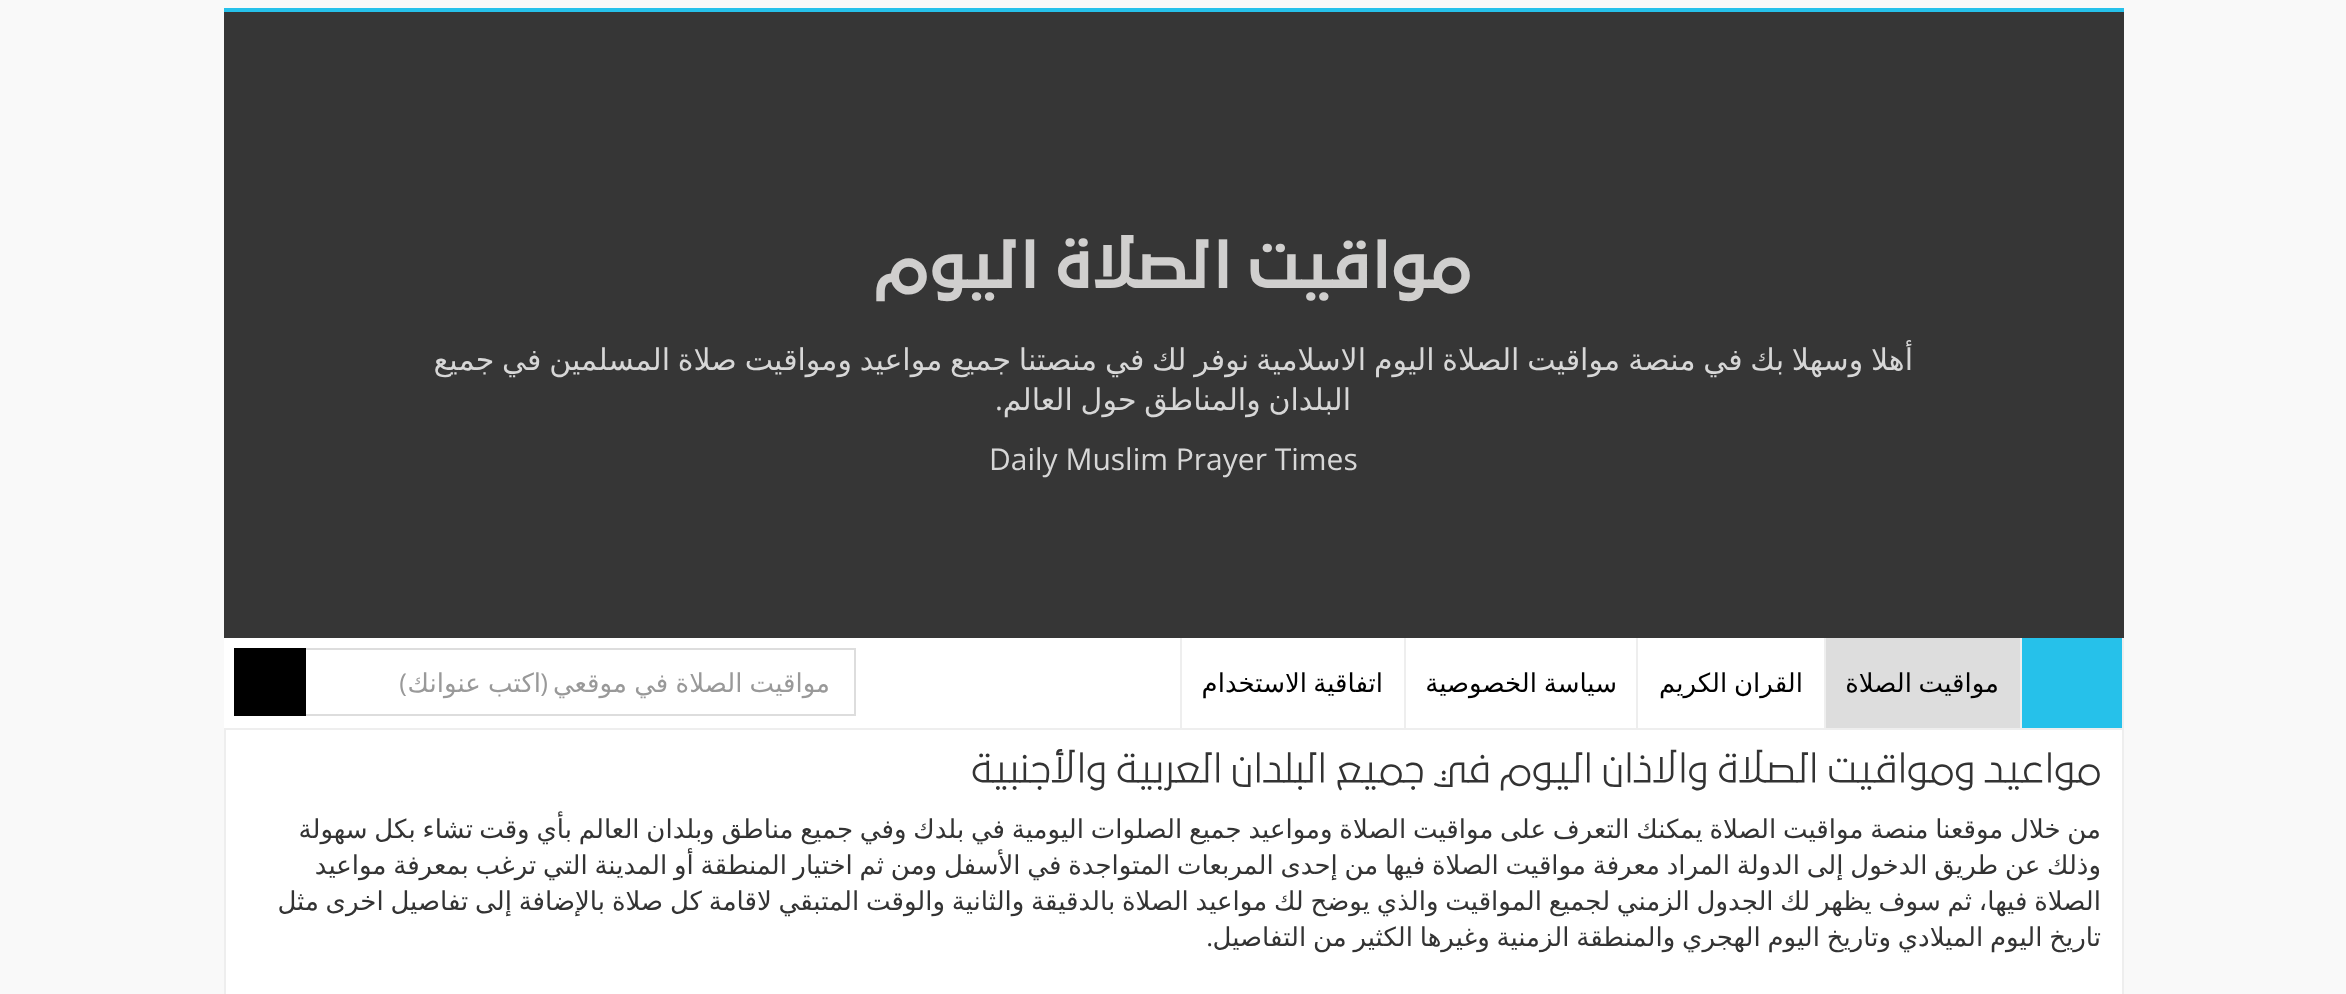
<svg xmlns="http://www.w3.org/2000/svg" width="2346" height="994">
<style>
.a{font:bold 60px '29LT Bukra';direction:rtl;fill:#d0cfce}
.b{font:30px DejaVu Sans;direction:rtl;fill:#d7d7d7}
.c{font:30px Open Sans;direction:rtl;fill:#d7d7d7}
.d{font:30px Open Sans;fill:#d7d7d7}
.e{font:26px DejaVu Sans;direction:rtl;fill:#000}
.f{font:26px DejaVu Sans;direction:rtl;fill:#999}
.g{font:26px Open Sans;direction:rtl;fill:#999}
.h{font:36px '29LT Bukra';direction:rtl;fill:#333}
.i{font:26px DejaVu Sans;direction:rtl;fill:#333}
.j{font:26px Open Sans;direction:rtl;fill:#333}
</style>
<rect width="100%" height="100%" fill="#f9f9f9"/>
<path fill="#363636" d="M224 12h1900v626H224z"/>
<path fill="#26c1ea" d="M224 8h1900v4H224z"/>
<path fill="#fff" d="M224 638h1600v90H224z"/>
<path fill="#eee" d="M224 728h1900v2H224z"/>
<path fill="#eee" d="M2122 638h2v90H2122z"/>
<path fill="#26c1ea" d="M2022 638h100v90H2022z"/>
<path fill="#eee" d="M2020 638h2v90H2020z"/>
<path fill="#ddd" d="M1826 638h194v90H1826z"/>
<path fill="#eee" d="M1824 638h2v90H1824z"/>
<path fill="#eee" d="M1636 638h2v90H1636z"/>
<path fill="#eee" d="M1404 638h2v90H1404z"/>
<path fill="#eee" d="M1180 638h2v90H1180z"/>
<path fill="none" stroke="#ddd" stroke-width="2" d="M305 649h550v66H305z"/>
<path fill="#000" d="M234 648h72v68H234z"/>
<path fill="#fff" d="M226 730h1896v264H226z"/>
<path fill="#eee" d="M2122 730h2v264H2122z"/>
<path fill="#eee" d="M224 730h2v264H224z"/>
<text class="a" x="1472" y="288" word-spacing="-2">مواقيت الصلاة اليوم</text>
<text class="b" x="1913" y="370" word-spacing="-1.75">أهلا وسهلا بك في منصة</text>
<text class="b" x="1620" y="370" word-spacing="-1.75">مواقيت الصلاة اليوم</text>
<text class="b" x="1366" y="370">الاسلامية</text>
<text class="b" x="1249" y="370" word-spacing="-1.75">نوفر لك في منصتنا جميع مواعيد ومواقيت صلاة المسلمين في جميع</text>
<text class="b" x="1351" y="410" word-spacing="-1.75">البلدان والمناطق حول العالم</text>
<text class="c" x="1003" y="410">.</text>
<text class="d" x="989" y="470">Daily Muslim Prayer Times</text>
<text class="e" x="1999" y="692">مواقيت</text>
<text class="e" x="1912" y="692">الصلاة</text>
<text class="e" x="1803" y="692" word-spacing="-1.5">القران الكريم</text>
<text class="e" x="1617" y="692" word-spacing="-1.5">سياسة الخصوصية</text>
<text class="e" x="1383" y="692">اتفاقية</text>
<text class="e" x="1307" y="692">الاستخدام</text>
<text class="f" x="830" y="692" word-spacing="-1">مواقيت الصلاة في موقعي</text>
<text class="g" x="548" y="692">(</text>
<text class="f" x="541" y="692" word-spacing="-1">اكتب عنوانك</text>
<text class="g" x="407" y="692">)</text>
<text class="h" x="2101" y="782" word-spacing="-2.5">مواعيد ومواقيت الصلاة والاذان اليوم في جميع البلدان العربية والأجنبية</text>
<text class="i" x="2101" y="838" word-spacing="-1.5">من خلال موقعنا منصة مواقيت الصلاة يمكنك التعرف على مواقيت الصلاة ومواعيد جميع الصلوات اليومية في بلدك وفي جميع مناطق وبلدان العالم بأي وقت</text>
<text class="i" x="473" y="838" word-spacing="-1.5">تشاء بكل سهولة</text>
<text class="i" x="2101" y="874" word-spacing="-1.5">وذلك عن طريق الدخول إلى الدولة المراد معرفة مواقيت الصلاة فيها من إحدى المربعات المتواجدة في الأسفل ومن ثم اختيار</text>
<text class="i" x="787" y="874" word-spacing="-1.5">المنطقة أو المدينة التي ترغب بمعرفة مواعيد</text>
<text class="i" x="2101" y="910" word-spacing="-1.5">الصلاة فيها، ثم سوف يظهر لك الجدول الزمني لجميع المواقيت والذي يوضح لك مواعيد الصلاة بالدقيقة والثانية والوقت المتبقي لاقامة كل صلاة</text>
<text class="i" x="605" y="910" word-spacing="-1.5">بالإضافة إلى تفاصيل اخرى مثل</text>
<text class="i" x="2101" y="946" word-spacing="-1.5">تاريخ اليوم الميلادي وتاريخ اليوم الهجري والمنطقة الزمنية وغيرها الكثير من التفاصيل</text>
<text class="j" x="1213" y="946">.</text>
</svg>
